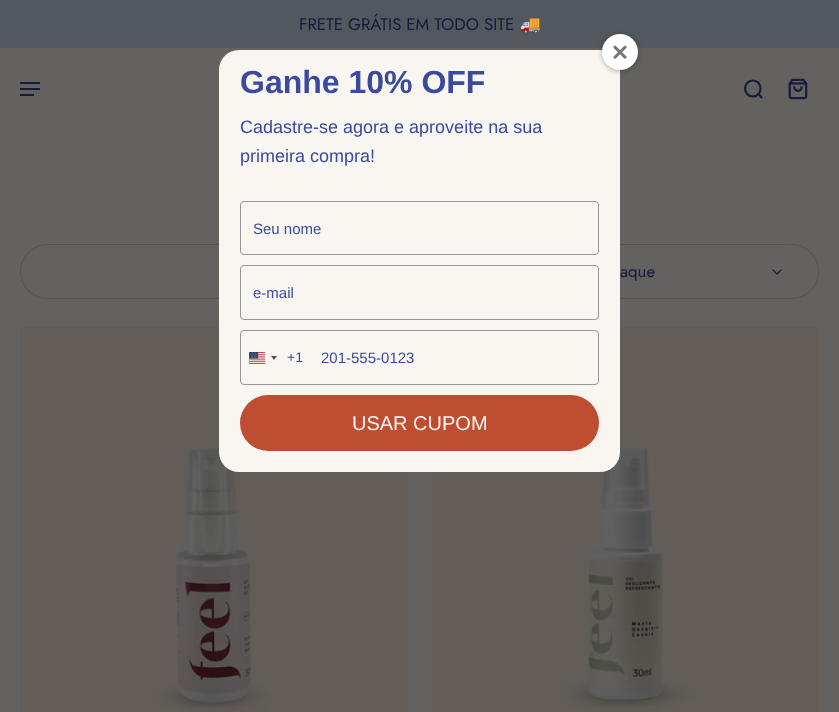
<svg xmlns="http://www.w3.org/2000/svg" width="839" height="712">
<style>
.a{font:16.75px Jost;fill:#171a3b}
.b{font:16.75px Noto Color Emoji;fill:#171a3b}
.c{font:bold 32px Liberation Sans;fill:#3a4a9f}
.d{font:18px Liberation Sans;fill:#3a4a9f}
.e{font:15px Liberation Sans;fill:#3a4a9f}
.f{font:14px Liberation Sans;fill:#3a4a9f}
.g{font:20px Liberation Sans;fill:#f9f6f1}
</style>
<rect width="100%" height="100%" fill="#646260"/>
<path fill="#53575e" d="M0 0h839v48H0z"/>
<image href="1.png" x="20" y="82" width="20" height="14"/>
<path fill="none" stroke="#171a3b" stroke-width="2.1" stroke-linecap="round" stroke-linejoin="round" d="M753 96.5c10 0 10-16 0-16c-10.5 0-10.5 16 0 16zm8.5 1l-1.5-2"/>
<image href="2.png" x="788" y="78" width="20" height="22"/>
<rect fill="none" stroke="#5e524a" x="20.5" y="244.5" width="798" height="54" rx="27"/>
<path fill="none" stroke="#171a3b" stroke-width="1.1" stroke-linecap="round" stroke-linejoin="round" d="M773 270l4 4l4-4"/>
<image href="3.png" x="20" y="327" width="388" height="385"/>
<image href="4.png" x="432" y="327" width="387" height="385"/>
<rect fill="#f9f6f1" x="219" y="50" width="401" height="422" rx="20"/>
<rect fill="#0000004d" filter="blur(2.5px)" x="602" y="35" width="36" height="36" rx="18"/>
<circle fill="#fff" cx="620" cy="52" r="18"/>
<image href="5.png" x="613" y="45" width="14" height="14"/>
<rect fill="none" stroke="#979797" x="240.5" y="201.5" width="358" height="53" rx="3.5"/>
<rect fill="none" stroke="#979797" x="240.5" y="265.5" width="358" height="54" rx="3.5"/>
<rect fill="none" stroke="#979797" x="240.5" y="330.5" width="358" height="54" rx="3.5"/>
<rect fill="#888" filter="blur(0.5px)" x="249" y="352" width="16" height="12" rx="1"/>
<image href="6.png" x="249" y="352" width="16" height="12"/>
<path fill="#555" d="M271 356h6l-3 4z"/>
<rect fill="#bf4d31" x="240" y="395" width="359" height="56" rx="28"/>
<text class="a" x="299" y="30">FRETE GRÁTIS EM TODO SITE</text>
<text class="b" x="520" y="30">🚚</text>
<text class="a" x="620" y="277">aque</text>
<text class="c" x="240" y="93">Ganhe 10% OFF</text>
<text class="d" x="240" y="133">Cadastre-se agora e aproveite na sua</text>
<text class="d" x="240" y="162">primeira compra!</text>
<text class="e" x="253" y="234">Seu nome</text>
<text class="e" x="253" y="298">e-mail</text>
<text class="f" x="287" y="362">+1</text>
<text class="e" x="321" y="363">201-555-0123</text>
<text class="g" x="352" y="430">USAR CUPOM</text>
</svg>
